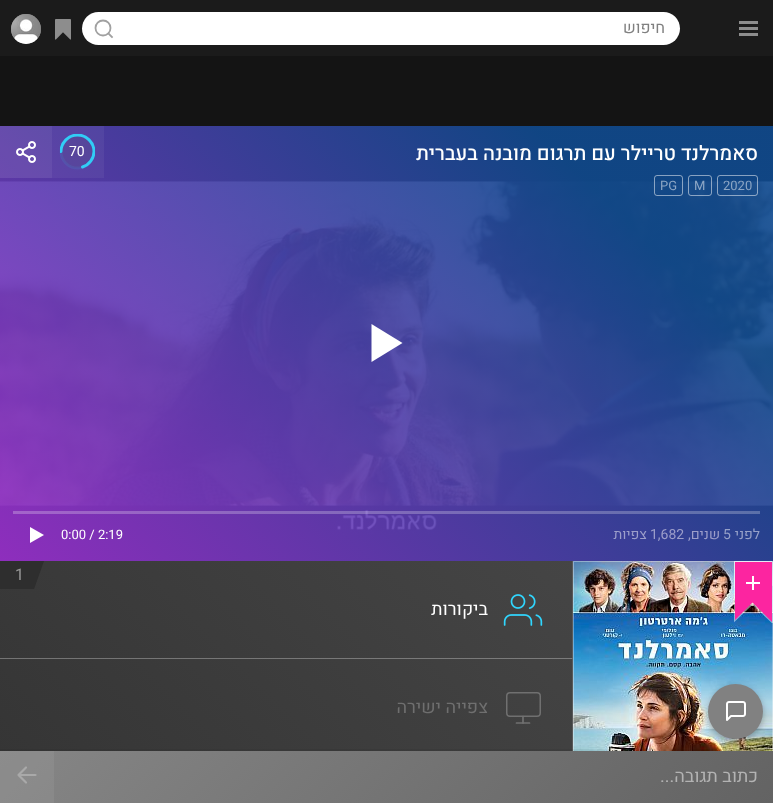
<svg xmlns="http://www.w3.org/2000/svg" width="773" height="803">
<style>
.a{font:16px Heebo;direction:rtl;fill:#808080}
.b{font:500 20px Heebo;direction:rtl;fill:#fff}
.c{font:13px Heebo;fill:#8ca6c5}
.d{font:14px Heebo;fill:#fff}
.e{font:14px Heebo;direction:rtl;fill:#96a0c8}
.f{font:14px Heebo;fill:#96a0c8}
.g{font:14px Heebo;direction:rtl;fill:#9c9eca}
.h{font:14px Heebo;fill:#9c9eca}
.i{font:13px Heebo;fill:#fff}
.j{font:16px Heebo;fill:#979797}
.k{font:18px Heebo;direction:rtl;fill:#fff}
.l{font:18px Heebo;direction:rtl;fill:#6f6f6f}
.m{font:18px Heebo;direction:rtl;fill:#b3b3b3}
</style>
<defs>
<linearGradient id="g1" gradientUnits="userSpaceOnUse" x1="85" y1="646" x2="689" y2="41"><stop offset="0" stop-color="#9e33d2" stop-opacity="0.9"/><stop offset="0.8" stop-color="#124d92" stop-opacity="0.9"/></linearGradient>
<clipPath id="clip1"><path d="M60 134h35v35H60z"/></clipPath>
<linearGradient id="g2" gradientUnits="userSpaceOnUse" x1="119" y1="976" x2="654" y2="442"><stop offset="0" stop-color="#333"/><stop offset="1" stop-color="#494949"/></linearGradient>
<clipPath id="clip2"><path d="M734 561h39v62H734z"/></clipPath>
<clipPath id="clip3"><path d="M735 561h37v62H735z"/></clipPath>
<linearGradient id="g3" gradientUnits="userSpaceOnUse" x1="180" y1="571" x2="593" y2="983"><stop offset="0" stop-color="#868686"/><stop offset="1" stop-color="#636363"/></linearGradient>
</defs>
<rect width="100%" height="100%" fill="#141414"/>
<path fill="#1b1b1b" d="M0 0h773v56H0z"/>
<path fill="#8d8d8d" d="M739 27h19v3H739z"/>
<path fill="#8d8d8d" d="M739 21h19v3H739z"/>
<path fill="#8d8d8d" d="M739 33h19v3H739z"/>
<rect fill="#fff" x="82" y="12" width="598" height="33" rx="16.5"/>
<circle fill="none" stroke="#a1a1a1" stroke-width="1.8" cx="103" cy="28" r="7.5"/>
<path fill="none" stroke="#a1a1a1" stroke-width="1.8" stroke-linecap="square" d="M112 37l-3.5-3.5"/>
<image href="1.png" x="55" y="19" width="16" height="21"/>
<circle fill="#8d8d8d" cx="26" cy="29" r="15"/>
<image href="2.png" x="11" y="14" width="30" height="30"/>
<path fill="#000" d="M0 126h773v435H0z"/>
<image href="4.png" x="0" y="180" width="773" height="355"/>
<path fill="url(#g1)" d="M0 126h773v435H0z"/>
<rect fill="none" stroke="#ffffff80" x="717.5" y="175.5" width="40" height="20" rx="2.5"/>
<rect fill="none" stroke="#ffffff80" x="688.5" y="175.5" width="23" height="20" rx="2.5"/>
<rect fill="none" stroke="#ffffff80" x="654.5" y="175.5" width="28" height="20" rx="2.5"/>
<path fill="#ffffff0d" d="M52 126h52v52H52z"/>
<circle fill="#5a5a5a1a" stroke="#31cdf61a" stroke-width="2.9" cx="77.5" cy="151.5" r="16.5"/>
<g clip-path="url(#clip1)">
<path fill="none" stroke="#31cdf6" stroke-width="2.9" stroke-linecap="round" d="M61 151.5c0-9 7.5-16.5 16.5-16.5c9 0 16.5 7.5 16.5 16.5c0 7-5 13.5-11.5 15.5"/>
</g>
<image href="3.png" x="16" y="141" width="20" height="22"/>
<path fill="#ffffff1a" d="M0 126h52v52H0z"/>
<path fill="#fff" d="M371.5 324l31 19l-31 19z"/>
<path fill="#ffffff40" d="M13 511h747v3H13z"/>
<path fill="#fff" d="M30 527l14 8l-14 8z"/>
<path fill="url(#g2)" d="M0 561h573v190H0z"/>
<image href="5.png" x="573" y="561" width="200" height="190"/>
<path fill="none" stroke="#ffffff59" d="M573.5 561.5h199v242H573.5z"/>
<g clip-path="url(#clip2)">
<path fill="#ffffff80" d="M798 562l-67 63l2-65z"/>
<path fill="#ffffff80" d="M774 625l-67-63l65-2z"/>
</g>
<g clip-path="url(#clip3)">
<path fill="#fc25a0" d="M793 562l-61 61v-61z"/>
<path fill="#fc25a0" d="M773 623l-61-61h61z"/>
</g>
<path fill="#fff" d="M752 576h2v14H752z"/>
<path fill="#fff" d="M746 582h14v2H746z"/>
<path fill="#5a5a5a" d="M573 561v98l-1-1v-97z"/>
<path fill="#ffffff4d" d="M573 659h-573v-1h572z"/>
<path fill="#2e2e2e" d="M-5 561h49l-10 28h-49z"/>
<image href="6.png" x="503" y="594" width="40" height="32"/>
<path fill="#5a5a5a" d="M573 659v99l-1-1v-98z"/>
<rect fill="none" stroke="#707070" stroke-width="1.5" x="506.75" y="692.75" width="33.5" height="23.5" rx="3.25"/>
<path fill="none" stroke="#707070" stroke-width="1.7" stroke-linecap="round" stroke-linejoin="round" d="M516.5 723h13"/>
<path fill="none" stroke="#717171" stroke-width="1.7" stroke-linecap="round" stroke-linejoin="round" d="M523 716.5v6.5"/>
<path fill="none" stroke="#0000000d" stroke-width="2" d="M-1 750h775v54H-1z"/>
<path fill="url(#g3)" d="M0 751h773v52H0z"/>
<rect fill="#0000004d" filter="blur(3.5px)" x="708" y="687" width="55" height="55" rx="27.5"/>
<circle fill="#818181" cx="735.5" cy="711.5" r="27.5"/>
<image href="7.png" x="726" y="701" width="20" height="20"/>
<path fill="#9c9c9c4d" d="M0 751h54v52H0z"/>
<path fill="none" stroke="#a9a9a9" stroke-width="2.2" stroke-linecap="round" stroke-linejoin="round" d="M26 767.5l-7.5 7.5l7.5 7.5m-7.5-7.5h17"/>
<text class="a" x="665" y="33">חיפוש</text>
<text class="b" x="758" y="160">סאמרלנד טריילר עם תרגום מובנה בעברית</text>
<text class="c" x="723" y="190">2020</text>
<text class="c" x="694" y="190">M</text>
<text class="c" x="660" y="190">PG</text>
<text class="d" x="69" y="156">70</text>
<text class="e" x="760" y="539">לפני</text>
<text class="f" x="723" y="539">5</text>
<text class="g" x="720" y="539">שנים,</text>
<text class="h" x="650" y="539">1,682</text>
<text class="g" x="647" y="539">צפיות</text>
<text class="i" x="61" y="539">0:00 / 2:19</text>
<text class="j" x="15" y="580">1</text>
<text class="k" x="488" y="615">ביקורות</text>
<text class="l" x="488" y="713">צפייה ישירה</text>
<text class="m" x="758" y="782">כתוב תגובה...</text>
</svg>
